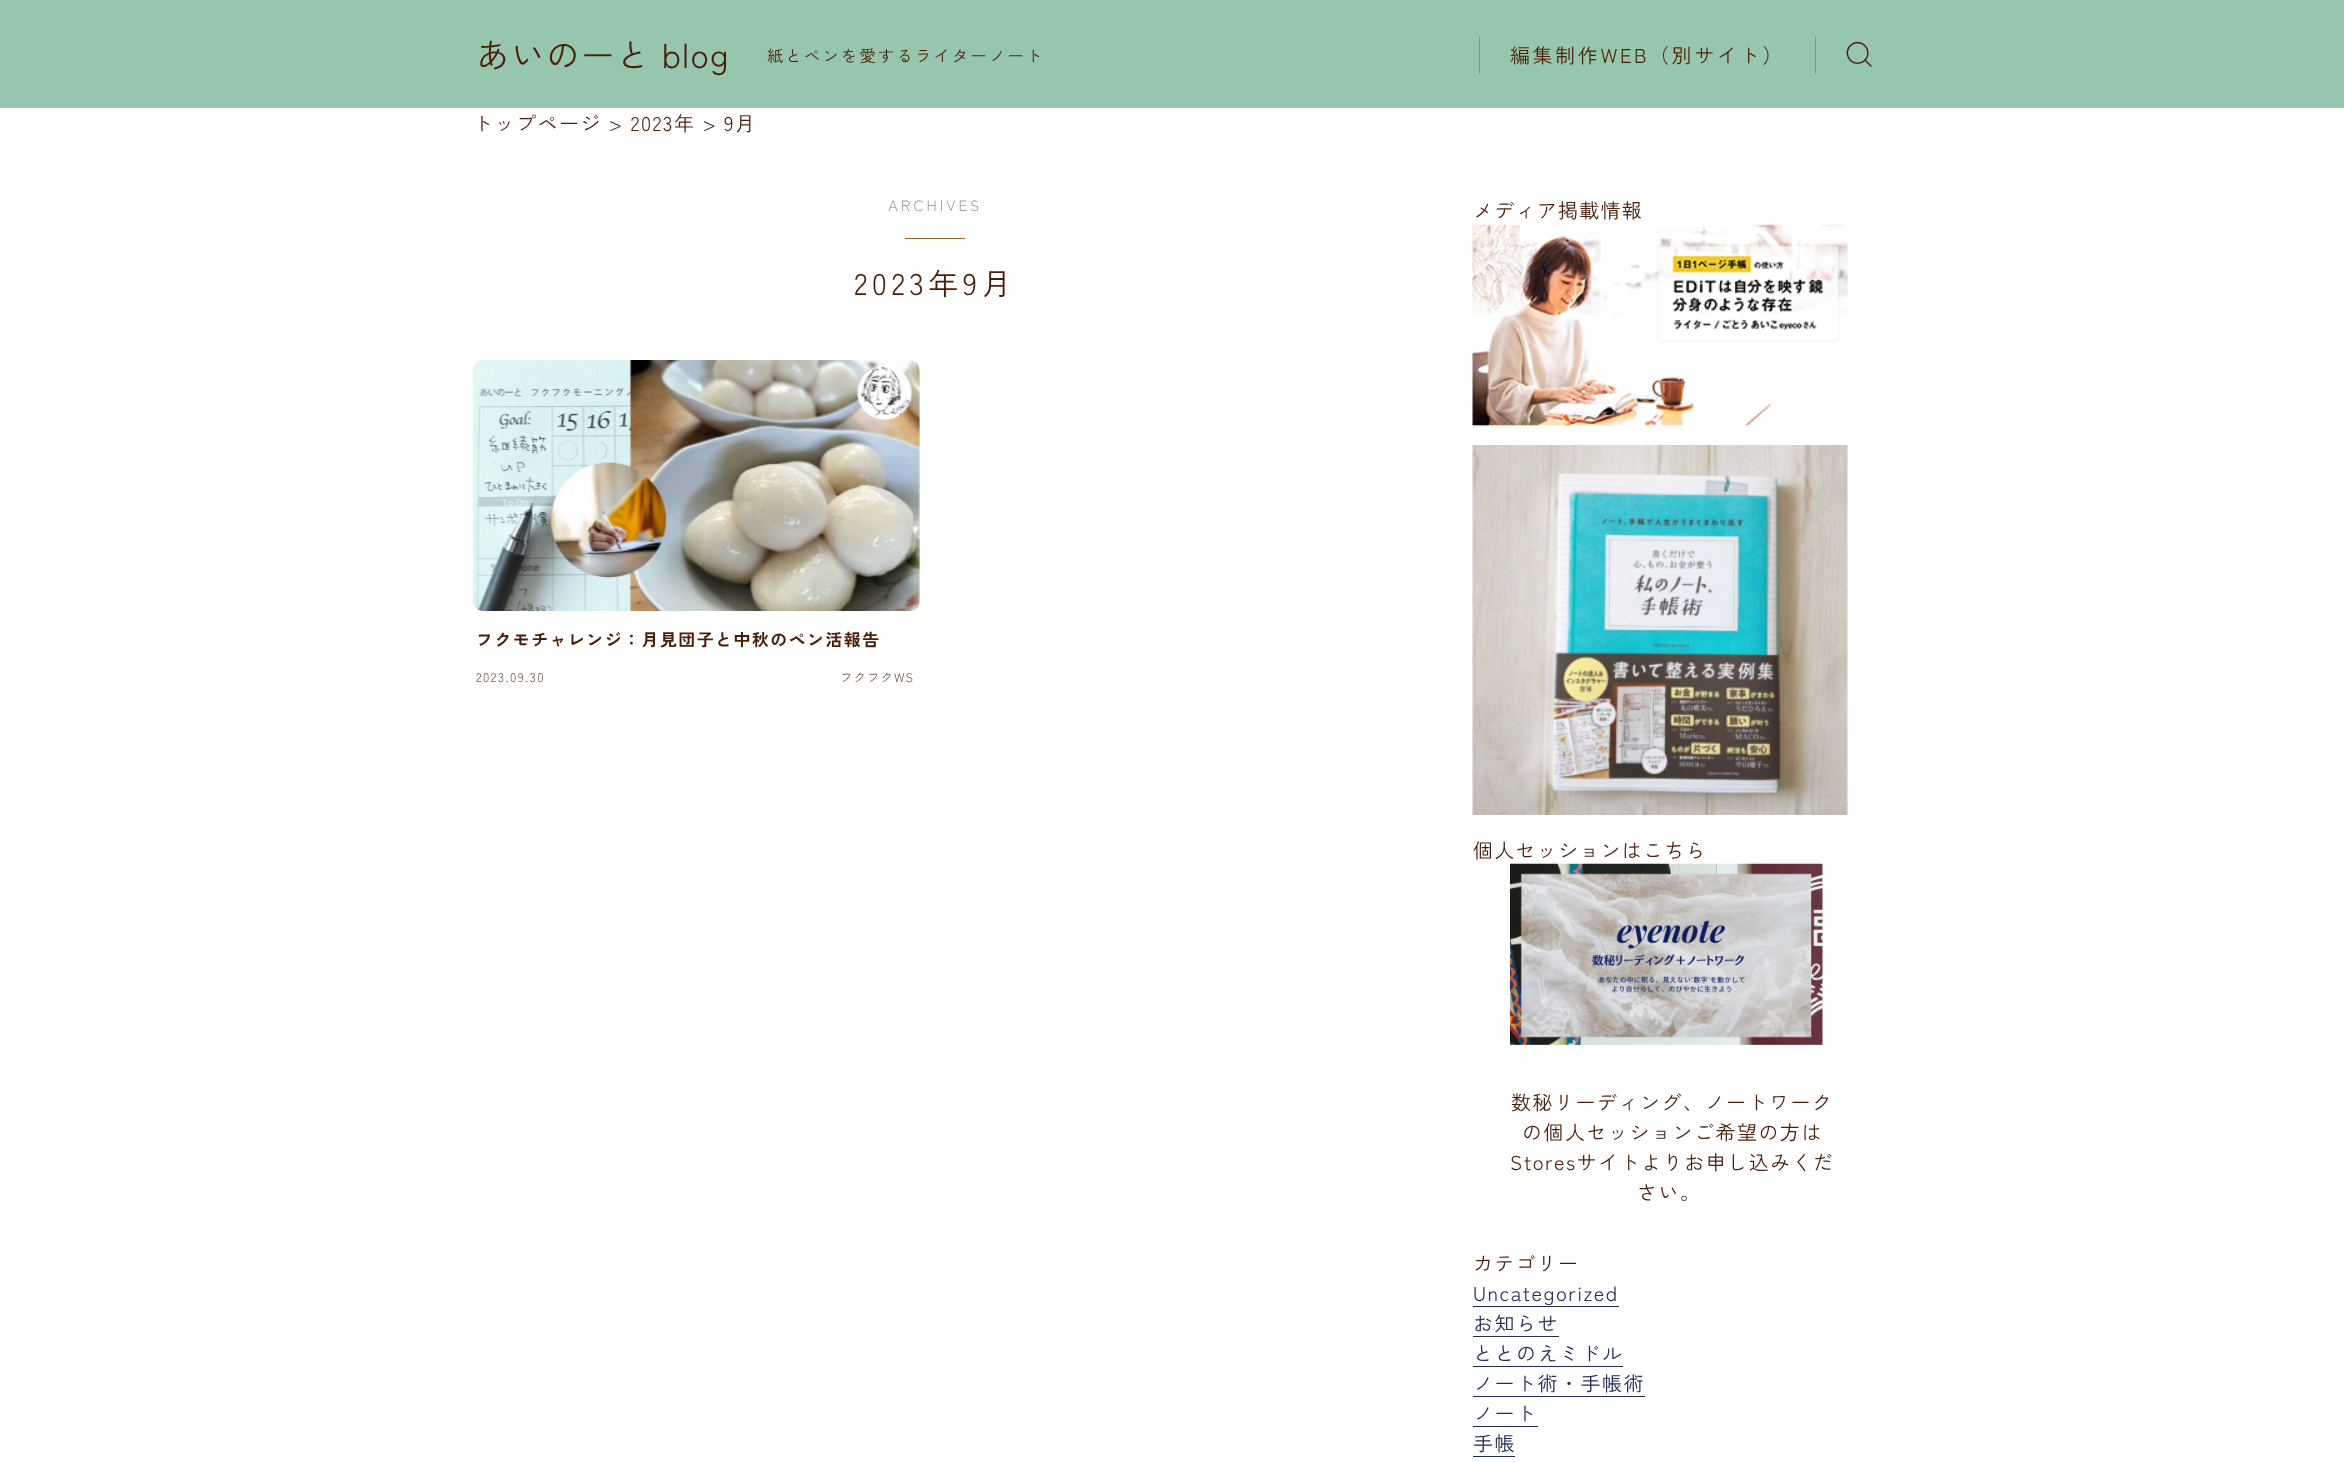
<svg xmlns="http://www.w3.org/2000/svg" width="2344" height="1462">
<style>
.a{font:33.75px Zen Kaku Gothic New;letter-spacing:1.25px;fill:#4b1e07}
.b{font:16.25px Zen Kaku Gothic New;letter-spacing:2.25px;fill:#4b1e07}
.c{font:20px Zen Kaku Gothic New;letter-spacing:2.6px;fill:#4b1e07}
.d{font:20px Zen Kaku Gothic New;letter-spacing:1.5px;fill:#4b1e07}
.e{font:15px Zen Kaku Gothic New;letter-spacing:3px;fill:#ae9a8f}
.f{font:30px Zen Kaku Gothic New;letter-spacing:4.5px;fill:#4b1e07}
.g{font:bold 16.9px Zen Kaku Gothic New;letter-spacing:1.5px;fill:#4b1e07}
.h{font:12.5px Zen Kaku Gothic New;letter-spacing:1.5px;fill:#785645}
.i{font:12.5px Zen Kaku Gothic New;letter-spacing:1px;fill:#785645}
.j{font:20px Zen Kaku Gothic New;letter-spacing:1.25px;fill:#4b1e07}
.k{font:20px Zen Kaku Gothic New;letter-spacing:1.5px;fill:#212e55}
</style>
<rect width="100%" height="100%" fill="#fff"/>
<path fill="#97c6ae" d="M0 0h2344v108H0z"/>
<path fill="#829981" d="M1815 36h1v38H1815z"/>
<path fill="#829981" d="M1479 36h1v38H1479z"/>
<image href="1.png" x="1846" y="41" width="26" height="26"/>
<path fill="#966722" d="M905 238h60v1H905z"/>
<image href="2.png" x="472" y="360" width="448" height="251"/>
<image href="3.png" x="1472" y="223" width="376" height="204"/>
<image href="4.png" x="1472" y="445" width="376" height="370"/>
<image href="5.png" x="1510" y="863" width="313" height="182"/>
<path fill="#212e55" d="M1473 1306h146v1H1473z"/>
<path fill="#212e55" d="M1473 1336h86v1H1473z"/>
<path fill="#212e55" d="M1473 1366h150v1H1473z"/>
<path fill="#212e55" d="M1473 1396h172v1H1473z"/>
<path fill="#212e55" d="M1473 1426h65v1H1473z"/>
<path fill="#212e55" d="M1473 1456h42v1H1473z"/>
<text class="a" x="476" y="68">あいのーと blog</text>
<text class="b" x="767" y="62">紙とペンを愛するライターノート</text>
<text class="c" x="1510" y="63">編集制作WEB（別サイト）</text>
<text class="d" x="473" y="131">トップページ &gt; 2023年 &gt; 9月</text>
<text class="e" x="888" y="211">ARCHIVES</text>
<text class="f" x="854" y="295">2023年9月</text>
<text class="g" x="476" y="646">フクモチャレンジ：月見団子と中秋のペン活報告</text>
<text class="h" x="476" y="682">2023.09.30</text>
<text class="i" x="840" y="682">フクフクWS</text>
<text class="j" x="1473" y="218">メディア掲載情報</text>
<text class="j" x="1473" y="858">個人セッションはこちら</text>
<text class="d" x="1511" y="1110">数秘リーディング、ノートワーク</text>
<text class="d" x="1522" y="1140">の個人セッションご希望の方は</text>
<text class="d" x="1510" y="1170">Storesサイトよりお申し込みくだ</text>
<text class="d" x="1637" y="1200">さい。</text>
<text class="j" x="1473" y="1271">カテゴリー</text>
<text class="k" x="1473" y="1301">Uncategorized</text>
<text class="k" x="1473" y="1331">お知らせ</text>
<text class="k" x="1473" y="1361">ととのえミドル</text>
<text class="k" x="1473" y="1391">ノート術・手帳術</text>
<text class="k" x="1473" y="1421">ノート</text>
<text class="k" x="1473" y="1451">手帳</text>
</svg>
